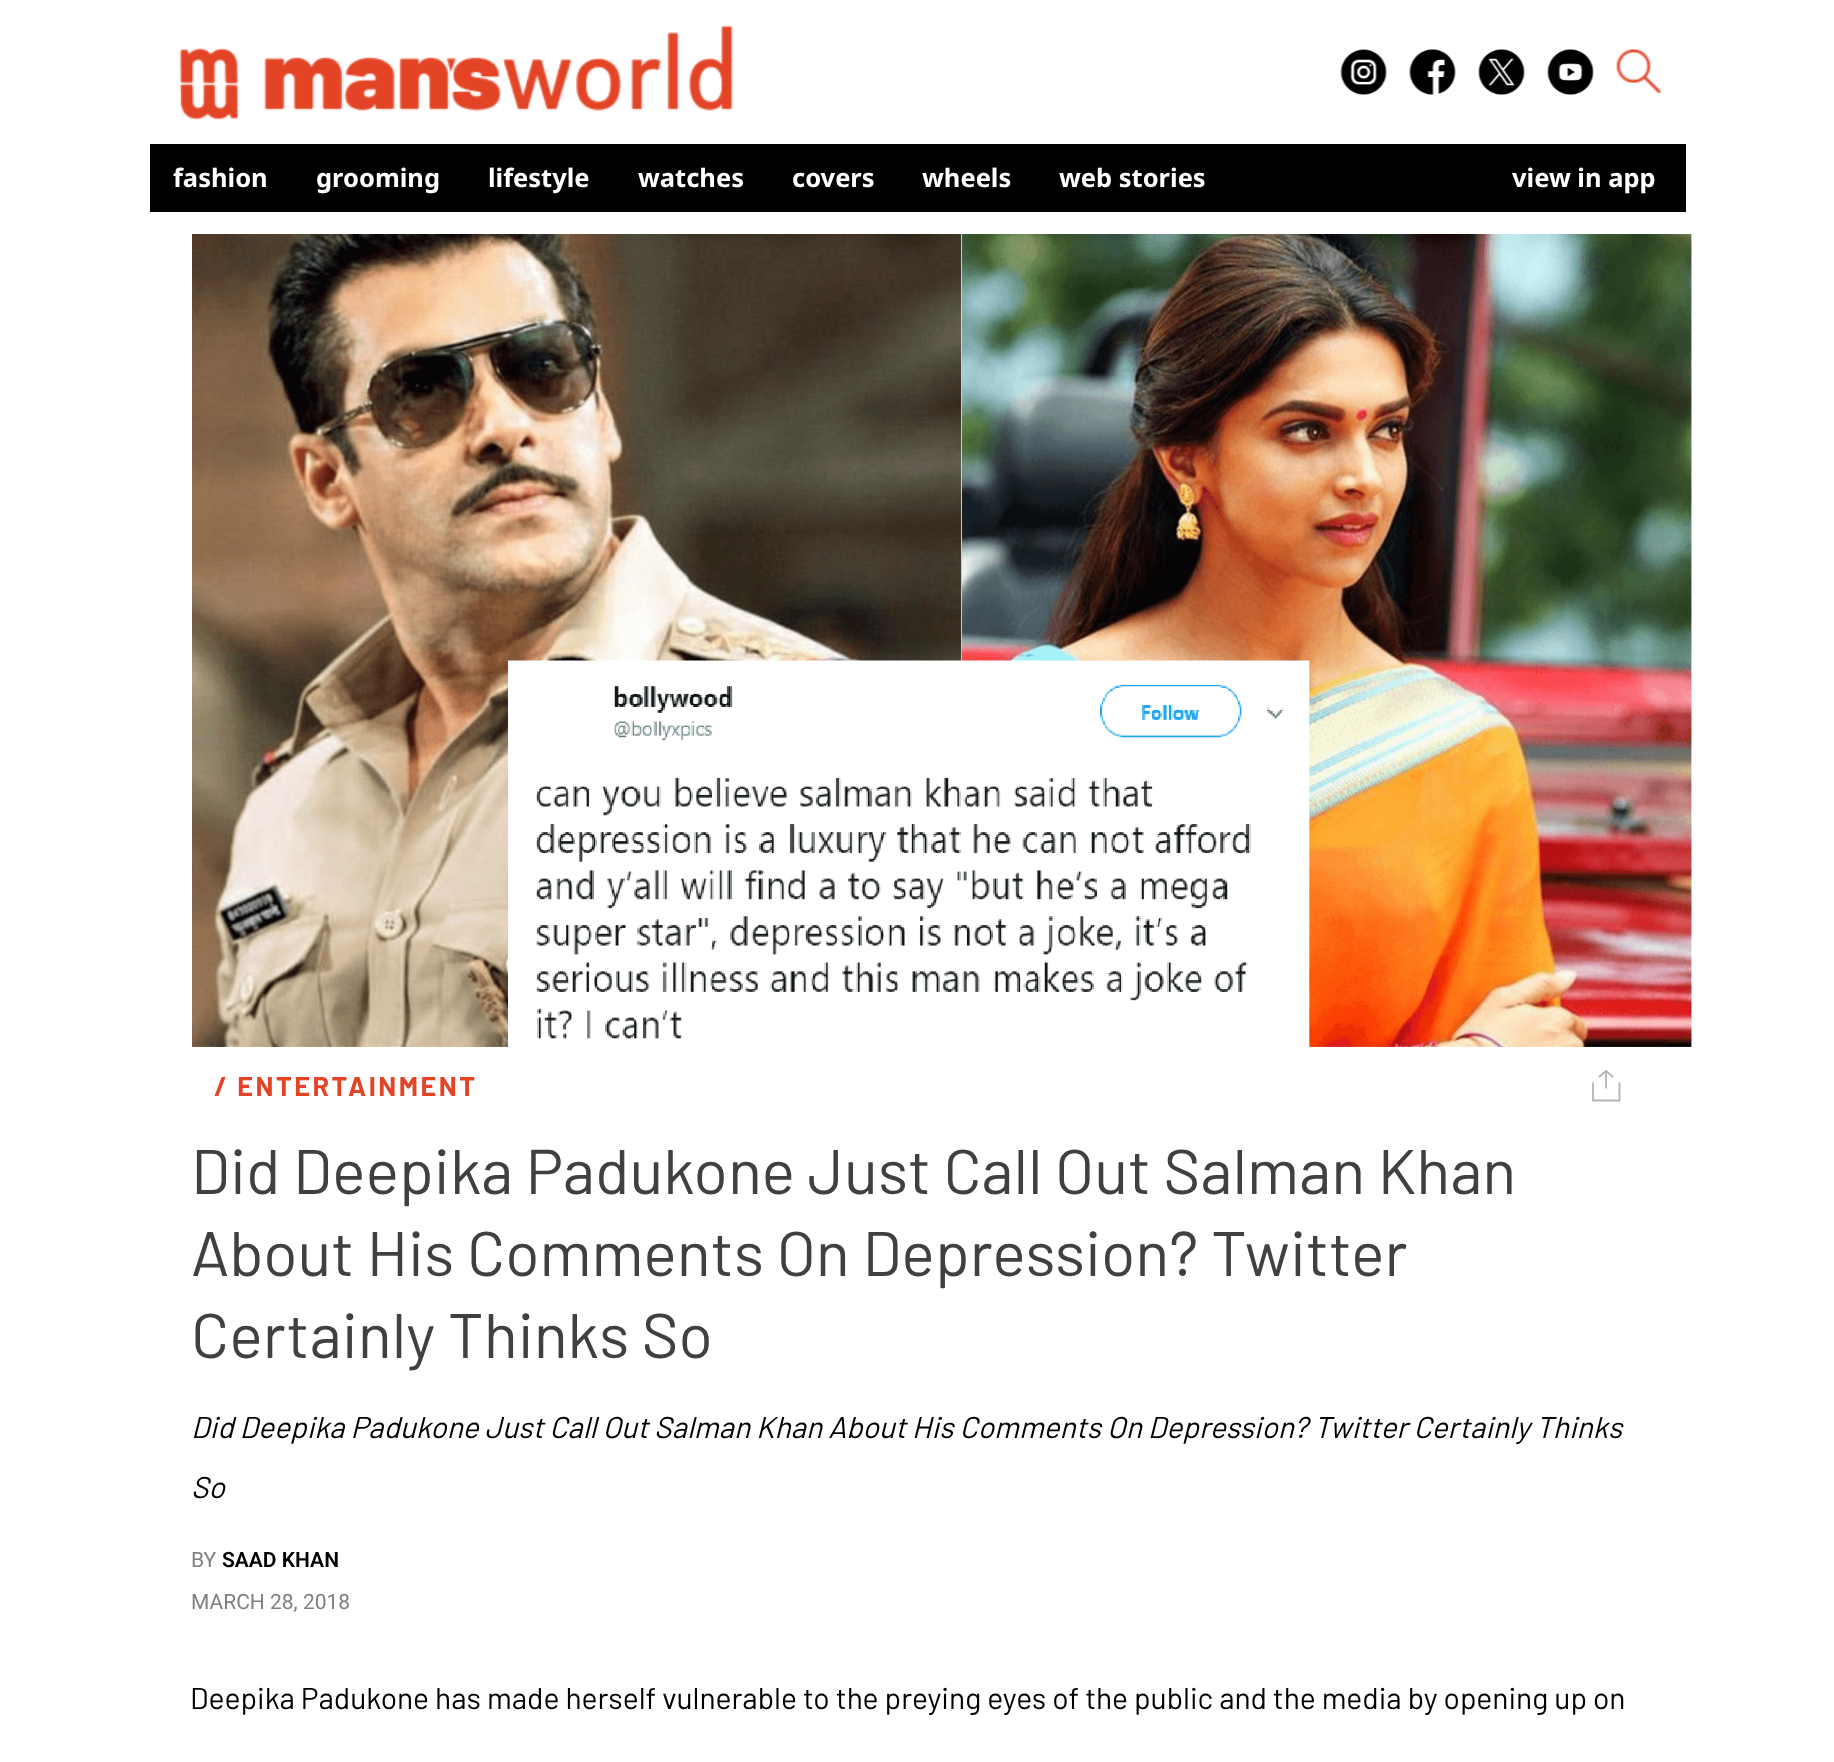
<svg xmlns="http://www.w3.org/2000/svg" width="1834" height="1762">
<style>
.a{font:bold 25.5px Noto Sans;fill:#fff}
.b{font:bold 27px Barlow;letter-spacing:2.5px;fill:#e34426}
.c{font:63px Barlow;fill:#404040}
.d{font:italic 30px Barlow;fill:#000}
.e{font:21px Roboto;fill:#808080}
.f{font:600 21px Roboto;fill:#000}
.g{font:30px Barlow;fill:#000}
</style>
<rect width="100%" height="100%" fill="#fff"/>
<image href="1.png" x="179" y="25" width="555" height="95"/>
<image href="2.png" x="1340" y="49" width="47" height="46"/>
<image href="3.png" x="1409" y="49" width="47" height="46"/>
<image href="4.png" x="1478" y="49" width="47" height="46"/>
<image href="5.png" x="1547" y="49" width="47" height="46"/>
<image href="6.png" x="1616" y="49" width="46" height="45"/>
<path fill="#000" d="M150 144h1536v68H150z"/>
<image href="7.png" x="192" y="234" width="1500" height="813"/>
<path fill="none" stroke="#b3b3b3" stroke-width="1.8" stroke-linecap="square" d="M1593 1083.5v17h26.5v-17m-13.5-10v14m-6.5-11l6.5-5.5l6.5 5.5"/>
<text class="a" x="173" y="187">fashion</text>
<text class="a" x="316" y="187">grooming</text>
<text class="a" x="488" y="187">lifestyle</text>
<text class="a" x="638" y="187">watches</text>
<text class="a" x="792" y="187">covers</text>
<text class="a" x="922" y="187">wheels</text>
<text class="a" x="1059" y="187">web stories</text>
<text class="a" x="1512" y="187">view in app</text>
<text class="b" x="214" y="1096">/ ENTERTAINMENT</text>
<text class="c" x="191" y="1194">Did Deepika Padukone Just Call Out Salman Khan</text>
<text class="c" x="191" y="1276">About His Comments On Depression? Twitter</text>
<text class="c" x="191" y="1358">Certainly Thinks So</text>
<text class="d" x="191" y="1438">Did Deepika Padukone Just Call Out Salman Khan About His Comments On Depression? Twitter Certainly Thinks</text>
<text class="d" x="191" y="1498">So</text>
<text class="e" x="191" y="1567">BY</text>
<text class="f" x="222" y="1567">SAAD KHAN</text>
<text class="e" x="191" y="1609">MARCH 28, 2018</text>
<text class="g" x="190" y="1709">Deepika Padukone has made herself vulnerable to the preying eyes of the public and the media by opening up on</text>
</svg>
